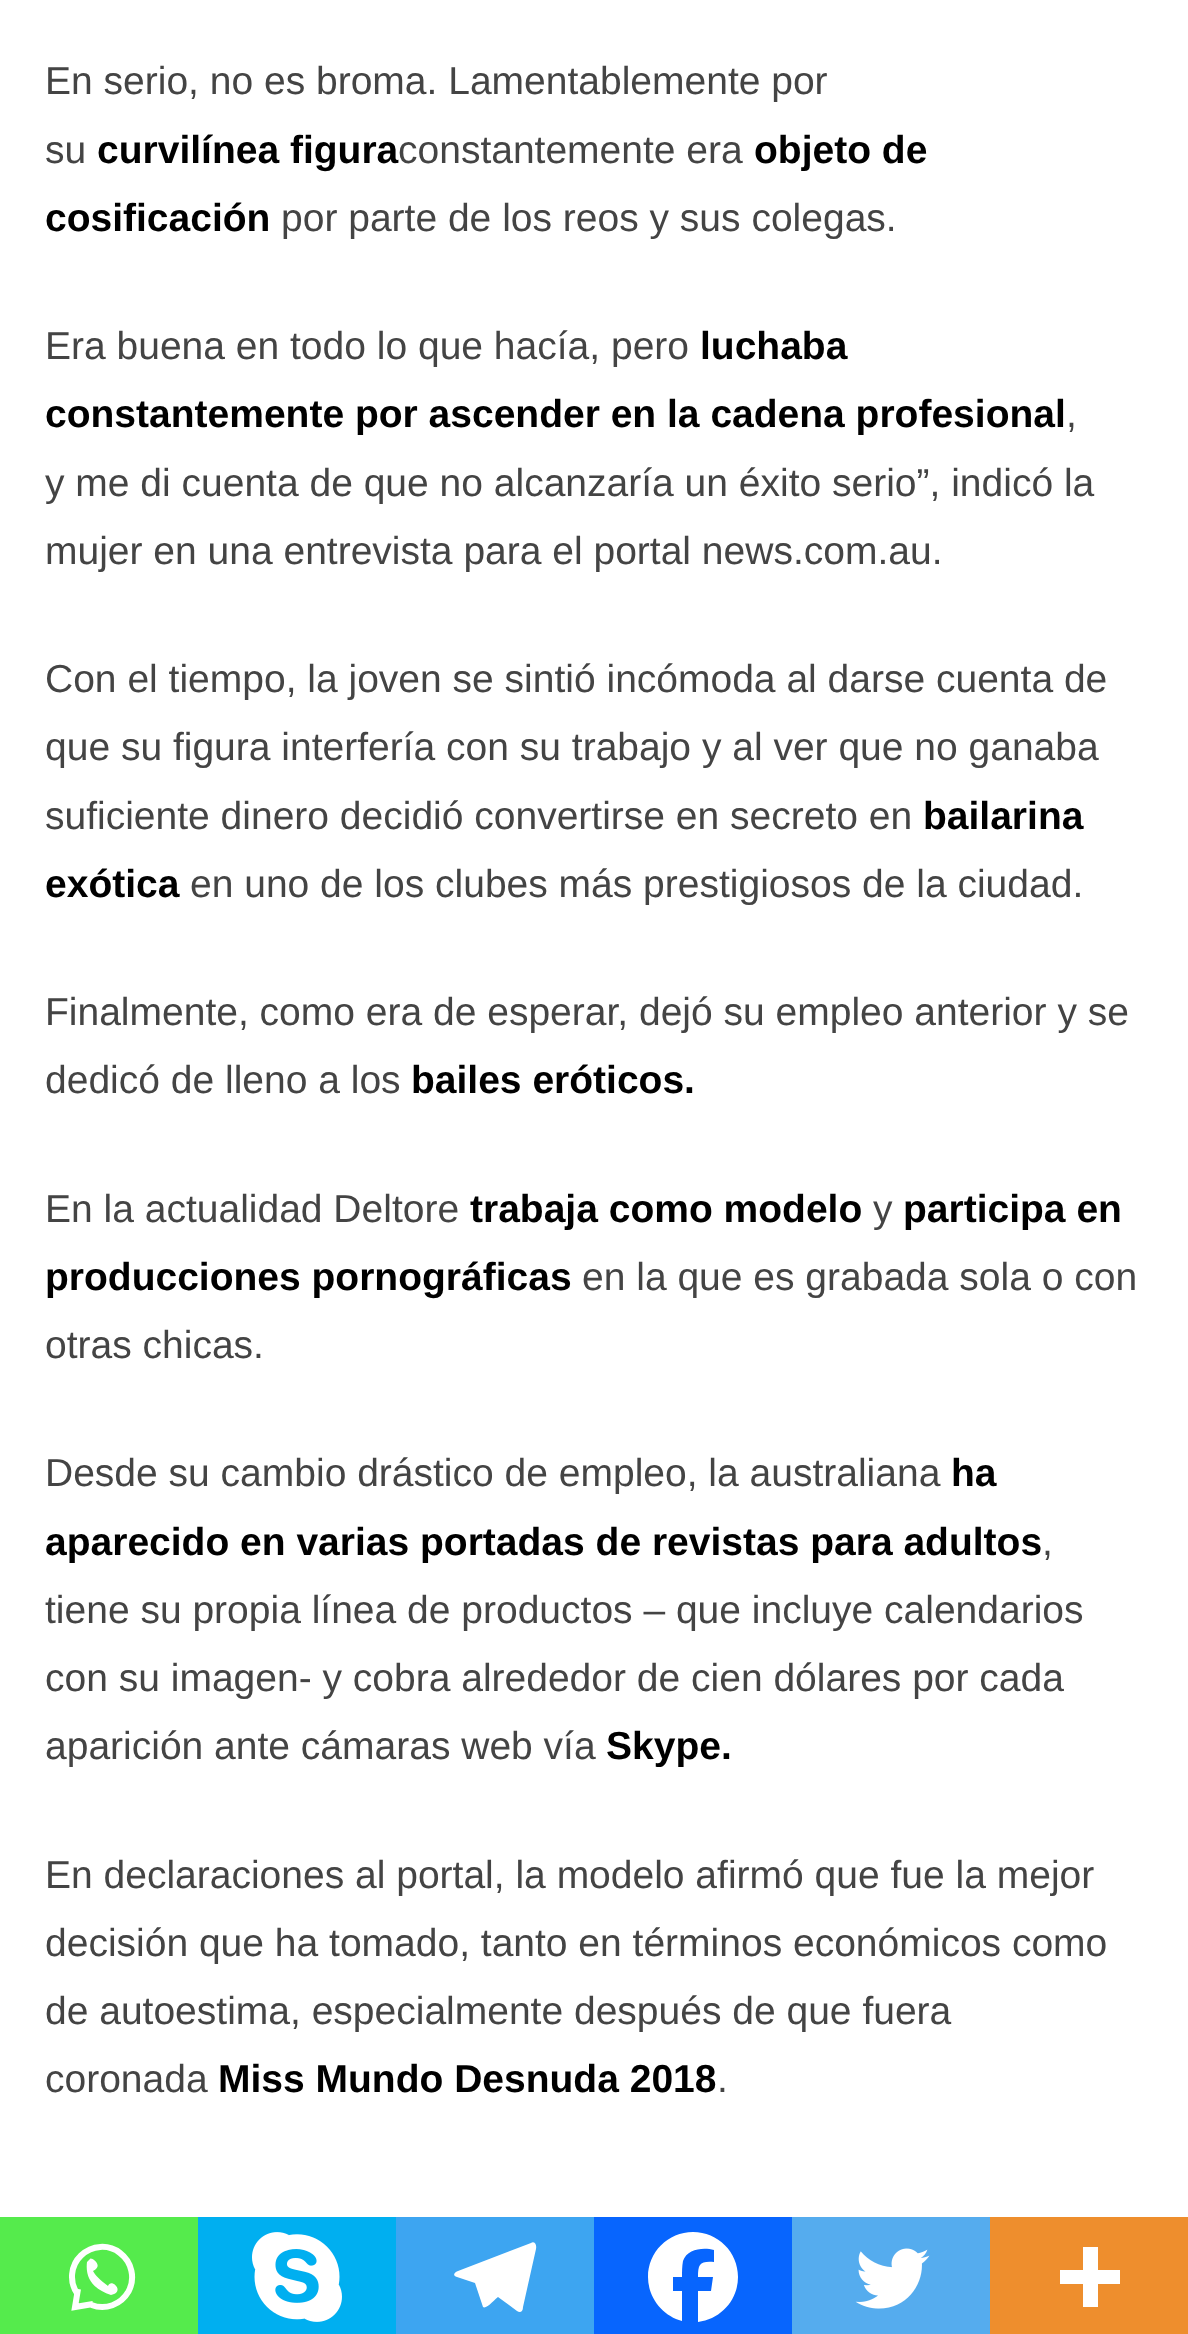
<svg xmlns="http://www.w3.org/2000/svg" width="1188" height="2334">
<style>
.a{font:39px Arimo;fill:#444}
.b{font:bold 39px Arimo;fill:#000}
</style>
<rect width="100%" height="100%" fill="#fff"/>
<path fill="#55eb4c" d="M0 2217h198v117H0z"/>
<path fill="none" stroke="#fff" stroke-width="6" d="M91.5 2305c14 5.5 29.5-.5 37-13.5c7-13 3.5-29.5-8.5-38.5c-11.5-9-28-8-39 2.5c-10.5 10-12 26.5-3.5 38.5"/>
<path fill="none" stroke="#fff" stroke-width="6" d="M78 2289l-3 18l18-3"/>
<path fill="#fff" d="M87 2262c-2 16 6 27 24 33c15-3 0-18-3-9c-8-6-13-11-15-15c12-6-3-15-3-12"/>
<path fill="#00aff0" d="M198 2217h198v117H198z"/>
<image href="1.png" x="252" y="2232" width="90" height="90"/>
<path fill="#3da5f1" d="M396 2217h198v117H396z"/>
<path fill="#fff" d="M531 2243l-73 28c-5 2-5 5-1 6l18 6l8 24c3 3 13-9 15-10l19 14c3 2 6 1 6-4l13-58c1-5-2-8-5-6z"/>
<path fill="#0765fe" d="M594 2217h198v117H594z"/>
<path fill="#fff" d="M738 2277c0-25-20-45-45-45c-25 0-45 20-45 45c0 21 15 39 34 44v-30h-9v-14h9c0-5 0-11 1-16c4-12 20-14 31-11v12c-14-1-16 2-16 15h15l-2 14h-13v31c23-3 40-22 40-45z"/>
<path fill="#55acee" d="M792 2217h198v117H792z"/>
<image href="2.png" x="855" y="2248" width="75" height="61"/>
<path fill="#ee8e2d" d="M990 2217h198v117H990z"/>
<path fill="#fff" fill-rule="evenodd" d="M1098 2270v-23h-15v23h-23v14h23v23h15v-23h22v-14z"/>
<text class="a" x="45" y="94">En serio, no es broma. Lamentablemente por</text>
<text class="a" x="45" y="163">su</text>
<text class="b" x="97" y="163">curvilínea figura</text>
<text class="a" x="398" y="163">constantemente era</text>
<text class="b" x="754" y="163">objeto de</text>
<text class="b" x="45" y="231">cosificación</text>
<text class="a" x="281" y="231">por parte de los reos y sus colegas.</text>
<text class="a" x="45" y="359">Era buena en todo lo que hacía, pero</text>
<text class="b" x="700" y="359">luchaba</text>
<text class="b" x="45" y="427">constantemente por ascender en la cadena profesional</text>
<text class="a" x="1066" y="427">,</text>
<text class="a" x="45" y="496">y me di cuenta de que no alcanzaría un éxito serio”, indicó la</text>
<text class="a" x="45" y="564">mujer en una entrevista para el portal news.com.au.</text>
<text class="a" x="45" y="692">Con el tiempo, la joven se sintió incómoda al darse cuenta de</text>
<text class="a" x="45" y="760">que su figura interfería con su trabajo y al ver que no ganaba</text>
<text class="a" x="45" y="829">suficiente dinero decidió convertirse en secreto en</text>
<text class="b" x="923" y="829">bailarina</text>
<text class="b" x="45" y="897">exótica</text>
<text class="a" x="190" y="897">en uno de los clubes más prestigiosos de la ciudad.</text>
<text class="a" x="45" y="1025">Finalmente, como era de esperar, dejó su empleo anterior y se</text>
<text class="a" x="45" y="1093">dedicó de lleno a los</text>
<text class="b" x="411" y="1093">bailes eróticos.</text>
<text class="a" x="45" y="1222">En la actualidad Deltore</text>
<text class="b" x="470" y="1222">trabaja como modelo</text>
<text class="a" x="873" y="1222">y</text>
<text class="b" x="903" y="1222">participa en</text>
<text class="b" x="45" y="1290">producciones pornográficas</text>
<text class="a" x="582" y="1290">en la que es grabada sola o con</text>
<text class="a" x="45" y="1358">otras chicas.</text>
<text class="a" x="45" y="1486">Desde su cambio drástico de empleo, la australiana</text>
<text class="b" x="951" y="1486">ha</text>
<text class="b" x="45" y="1555">aparecido en varias portadas de revistas para adultos</text>
<text class="a" x="1042" y="1555">,</text>
<text class="a" x="45" y="1623">tiene su propia línea de productos – que incluye calendarios</text>
<text class="a" x="45" y="1691">con su imagen- y cobra alrededor de cien dólares por cada</text>
<text class="a" x="45" y="1759">aparición ante cámaras web vía</text>
<text class="b" x="606" y="1759">Skype.</text>
<text class="a" x="45" y="1888">En declaraciones al portal, la modelo afirmó que fue la mejor</text>
<text class="a" x="45" y="1956">decisión que ha tomado, tanto en términos económicos como</text>
<text class="a" x="45" y="2024">de autoestima, especialmente después de que fuera</text>
<text class="a" x="45" y="2092">coronada</text>
<text class="b" x="218" y="2092">Miss Mundo Desnuda 2018</text>
<text class="a" x="717" y="2092">.</text>
</svg>
